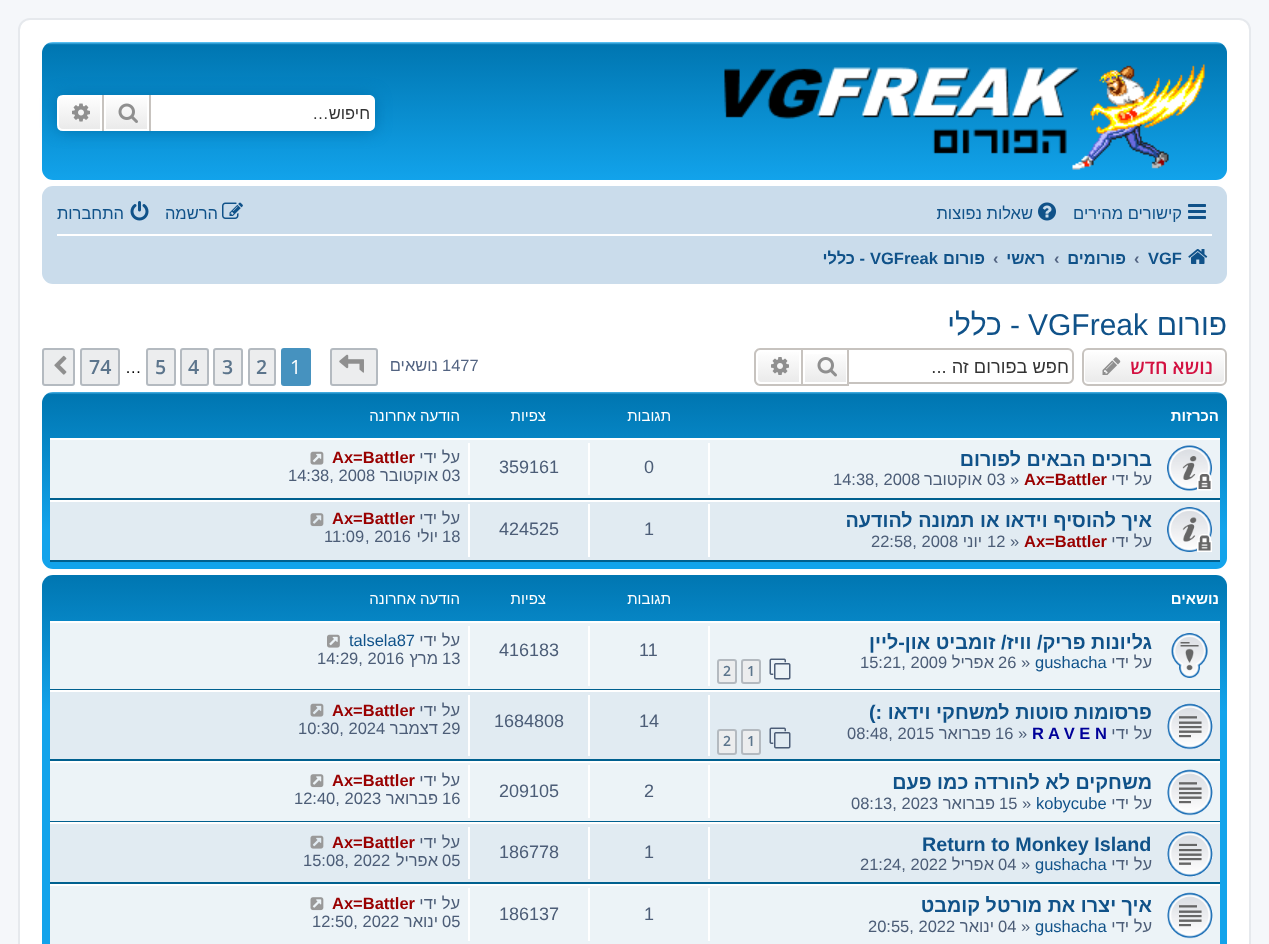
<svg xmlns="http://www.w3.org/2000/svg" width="1269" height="944">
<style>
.a{font:16.5px Liberation Sans;direction:rtl;fill:#333}
.b{font:16.5px Liberation Sans;direction:rtl;fill:#105289}
.c{font:bold 16.5px Liberation Sans;fill:#105289}
.d{font:bold 16.5px Liberation Sans;fill:#536482}
.e{font:bold 16.5px Liberation Sans;direction:rtl;fill:#105289}
.f{font:30px Liberation Sans;direction:rtl;fill:#105289}
.g{font:30px Liberation Sans;fill:#105289}
.h{font:600 19.5px Open Sans;direction:rtl;fill:#d31141}
.i{font:18.25px Liberation Sans;direction:rtl;fill:#333}
.j{font:16.5px Liberation Sans;fill:#536482}
.k{font:16.5px Liberation Sans;direction:rtl;fill:#536482}
.l{font:19.5px Open Sans;fill:#fff}
.m{font:600 19.5px Open Sans;fill:#5c758c}
.n{font:16.5px Liberation Sans;fill:#000}
.o{font:bold 15px Liberation Sans;direction:rtl;fill:#fff}
.p{font:15px Liberation Sans;direction:rtl;fill:#fff}
.q{font:bold 19.75px Liberation Sans;direction:rtl;fill:#105289}
.r{font:16.5px Liberation Sans;direction:rtl;fill:#4c5d77}
.s{font:bold 16.5px Liberation Sans;fill:#900}
.t{font:16.5px Liberation Sans;fill:#4c5d77}
.u{font:18px Liberation Sans;fill:#4c5d77}
.v{font:16.5px Liberation Sans;fill:#105289}
.w{font:600 14px Open Sans;fill:#5c758c}
.x{font:bold 16.5px Liberation Sans;fill:#009}
.y{font:bold 19.75px Liberation Sans;fill:#105289}
</style>
<defs>
<linearGradient id="g1" gradientUnits="userSpaceOnUse" x1="635" y1="42" x2="635" y2="180"><stop offset="0" stop-color="#6aceff"/><stop offset="0.02" stop-color="#0076b1"/><stop offset="1" stop-color="#12a3eb"/><stop offset="1" stop-color="#12a3eb"/></linearGradient>
<linearGradient id="g2" gradientUnits="userSpaceOnUse" x1="126" y1="95" x2="126" y2="131"><stop offset="0" stop-color="#fff"/><stop offset="1" stop-color="#e9e9e9"/></linearGradient>
<linearGradient id="g3" gradientUnits="userSpaceOnUse" x1="80" y1="95" x2="80" y2="131"><stop offset="0" stop-color="#fff"/><stop offset="1" stop-color="#e9e9e9"/></linearGradient>
<clipPath id="clip1"><rect x="1082" y="348" width="145" height="38" rx="6"/></clipPath>
<linearGradient id="g4" gradientUnits="userSpaceOnUse" x1="1154" y1="350" x2="1154" y2="384"><stop offset="0" stop-color="#fff"/><stop offset="1" stop-color="#e9e9e9"/></linearGradient>
<linearGradient id="g5" gradientUnits="userSpaceOnUse" x1="825" y1="350" x2="825" y2="384"><stop offset="0" stop-color="#fff"/><stop offset="1" stop-color="#e9e9e9"/></linearGradient>
<linearGradient id="g6" gradientUnits="userSpaceOnUse" x1="779" y1="350" x2="779" y2="384"><stop offset="0" stop-color="#fff"/><stop offset="1" stop-color="#e9e9e9"/></linearGradient>
<linearGradient id="g7" gradientUnits="userSpaceOnUse" x1="635" y1="391" x2="635" y2="569"><stop offset="0" stop-color="#6aceff"/><stop offset="0.02" stop-color="#0076b1"/><stop offset="0.78" stop-color="#12a3eb"/><stop offset="1" stop-color="#12a3eb"/></linearGradient>
<linearGradient id="g8" gradientUnits="userSpaceOnUse" x1="634" y1="574" x2="635" y2="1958"><stop offset="0" stop-color="#6aceff"/><stop offset="0" stop-color="#0076b1"/><stop offset="0.1" stop-color="#12a3eb"/><stop offset="1" stop-color="#12a3eb"/></linearGradient>
</defs>
<rect width="100%" height="100%" fill="#f5f7fa"/>
<rect fill="#fff" stroke="#e6e9ed" stroke-width="2" x="19" y="19" width="1231" height="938" rx="11"/>
<rect fill="url(#g1)" x="42" y="42" width="1185" height="138" rx="11"/>
<image href="1.png" x="724" y="64" width="481" height="106"/>
<rect fill="#0075b0" filter="blur(7.5px)" x="57" y="95" width="318" height="36" rx="6"/>
<path fill="#fff" d="M150 95h219c3.5 0 6 2.5 6 6v24c0 3.5-2.5 6-6 6h-219z"/>
<path fill="url(#g2)" d="M106 97h41v32H106z"/>
<path fill="none" stroke="#fff" stroke-width="2" d="M105 96h43v34H105z"/>
<path fill="#c7c3bf" d="M149 95h2v36H149z"/>
<path fill="#c7c3bf" d="M102 95h2v36H102z"/>
<image href="2.png" x="118" y="103" width="20" height="20"/>
<path fill="url(#g3)" stroke="#fff" stroke-width="2" d="M63 96h38v34h-38c-3 0-5-2-5-5v-24c0-3 2-5 5-5z"/>
<image href="3.png" x="72" y="103" width="18" height="19"/>
<rect fill="#cadceb" x="42" y="186" width="1185" height="98" rx="11"/>
<image href="4.png" x="1188" y="204" width="18" height="15"/>
<image href="5.png" x="1038" y="202" width="18" height="19"/>
<image href="6.png" x="222" y="202" width="21" height="17"/>
<image href="7.png" x="130" y="201" width="19" height="20"/>
<path fill="#fff" d="M57 234h1155v2H57z"/>
<image href="8.png" x="1188" y="249" width="20" height="15"/>
<g clip-path="url(#clip1)">
<path fill="url(#g4)" d="M1082 350h145v34H1082z"/>
</g>
<rect fill="none" stroke="#fff" stroke-width="2" x="1084" y="351" width="141" height="32" rx="4"/>
<rect fill="none" stroke="#c7c3bf" stroke-width="2" x="1083" y="349" width="143" height="36" rx="5"/>
<image href="9.png" x="1102" y="357" width="19" height="18"/>
<path fill="#c7c3bf" fill-rule="evenodd" d="M849 348h219c3 0 6 3 6 6v24c0 3-3 6-6 6h-219zm0 2h219c2 0 4 2 4 4v24c0 2-2 4-4 4h-219z"/>
<path fill="url(#g5)" d="M805 354h41v28H805z"/>
<path fill="none" stroke="#c7c3bf" stroke-width="2" d="M802 349h46v36H802z"/>
<image href="10.png" x="817" y="357" width="20" height="20"/>
<path fill="url(#g6)" stroke="#fff" stroke-width="2" d="M761 351h39v32h-39c-2 0-4-2-4-4v-24c0-2 2-4 4-4z"/>
<path fill="#c7c3bf" fill-rule="evenodd" d="M760 348h41v38h-41c-3 0-6-3-6-6v-26c0-3 3-6 6-6zm0 2h41v34h-41c-2 0-4-2-4-4v-26c0-2 2-4 4-4z"/>
<image href="11.png" x="771" y="357" width="18" height="18"/>
<rect fill="#ecedee" stroke="#b4bac0" stroke-width="2" x="331" y="349" width="46" height="36" rx="2"/>
<image href="12.png" x="339" y="354" width="25" height="19"/>
<rect fill="#4692bf" stroke="#4692bf" stroke-width="2" x="282" y="349" width="28" height="36" rx="2"/>
<rect fill="#ecedee" stroke="#b4bac0" stroke-width="2" x="249" y="349" width="26" height="36" rx="2"/>
<rect fill="#ecedee" stroke="#b4bac0" stroke-width="2" x="214" y="349" width="28" height="36" rx="2"/>
<rect fill="#ecedee" stroke="#b4bac0" stroke-width="2" x="181" y="349" width="27" height="36" rx="2"/>
<rect fill="#ecedee" stroke="#b4bac0" stroke-width="2" x="147" y="349" width="28" height="36" rx="2"/>
<rect fill="#ecedee" stroke="#b4bac0" stroke-width="2" x="81" y="349" width="38" height="36" rx="2"/>
<rect fill="#ecedee" stroke="#b4bac0" stroke-width="2" x="43" y="349" width="31" height="36" rx="2"/>
<image href="13.png" x="54" y="355" width="13" height="20"/>
<rect fill="url(#g7)" x="42" y="392" width="1185" height="177" rx="11"/>
<path fill="#ecf3f7" d="M50 440h1170v58H50z"/>
<path fill="#fff" d="M50 438h1170v2H50z"/>
<path fill="#00608f" d="M50 498h1170v2H50z"/>
<image href="14.png" x="1167" y="445" width="45" height="46"/>
<path fill="#fff" d="M708 443h2v52H708z"/>
<path fill="#fff" d="M588 443h2v52H588z"/>
<path fill="#fff" d="M468 443h2v52H468z"/>
<image href="15.png" x="310" y="451" width="14" height="14"/>
<path fill="#e1ebf2" d="M50 502h1170v58H50z"/>
<path fill="#fff" d="M50 500h1170v2H50z"/>
<path fill="#00608f" d="M50 560h1170v2H50z"/>
<image href="16.png" x="1167" y="507" width="45" height="45"/>
<path fill="#fff" d="M708 504h2v53H708z"/>
<path fill="#fff" d="M588 504h2v53H588z"/>
<path fill="#fff" d="M468 504h2v53H468z"/>
<image href="17.png" x="310" y="513" width="14" height="14"/>
<rect fill="url(#g8)" x="42" y="575" width="1185" height="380" rx="11"/>
<path fill="#ecf3f7" d="M50 623h1170v66H50z"/>
<path fill="#fff" d="M50 621h1170v2H50z"/>
<path fill="#00608f" d="M50 689h1170v1H50z"/>
<image href="18.png" x="1171" y="633" width="37" height="45"/>
<image href="19.png" x="769" y="658" width="22" height="22"/>
<rect fill="#ecedee" stroke="#b4bac0" stroke-width="2" x="742" y="660" width="18" height="23" rx="2"/>
<rect fill="#ecedee" stroke="#b4bac0" stroke-width="2" x="718" y="660" width="18" height="23" rx="2"/>
<path fill="#fff" d="M708 626h2v60H708z"/>
<path fill="#fff" d="M588 626h2v60H588z"/>
<path fill="#fff" d="M468 626h2v60H468z"/>
<image href="20.png" x="327" y="634" width="13" height="14"/>
<path fill="#e1ebf2" d="M50 692h1170v67H50z"/>
<path fill="#fff" d="M50 690h1170v2H50z"/>
<path fill="#00608f" d="M50 759h1170v2H50z"/>
<image href="21.png" x="1167" y="703" width="46" height="47"/>
<image href="22.png" x="769" y="727" width="22" height="22"/>
<rect fill="#ecedee" stroke="#b4bac0" stroke-width="2" x="742" y="730" width="18" height="24" rx="2"/>
<rect fill="#ecedee" stroke="#b4bac0" stroke-width="2" x="718" y="730" width="18" height="24" rx="2"/>
<path fill="#fff" d="M708 695h2v61H708z"/>
<path fill="#fff" d="M588 695h2v61H588z"/>
<path fill="#fff" d="M468 695h2v61H468z"/>
<image href="23.png" x="310" y="703" width="14" height="14"/>
<path fill="#ecf3f7" d="M50 763h1170v58H50z"/>
<path fill="#fff" d="M50 761h1170v2H50z"/>
<path fill="#00608f" d="M50 821h1170v1H50z"/>
<image href="24.png" x="1167" y="769" width="46" height="47"/>
<path fill="#fff" d="M708 765h2v53H708z"/>
<path fill="#fff" d="M588 765h2v53H588z"/>
<path fill="#fff" d="M468 765h2v53H468z"/>
<image href="25.png" x="310" y="774" width="14" height="14"/>
<path fill="#e1ebf2" d="M50 824h1170v58H50z"/>
<path fill="#fff" d="M50 822h1170v2H50z"/>
<path fill="#00608f" d="M50 882h1170v2H50z"/>
<image href="26.png" x="1167" y="831" width="46" height="46"/>
<path fill="#fff" d="M708 827h2v52H708z"/>
<path fill="#fff" d="M588 827h2v52H588z"/>
<path fill="#fff" d="M468 827h2v52H468z"/>
<image href="23.png" x="310" y="835" width="14" height="14"/>
<path fill="#ecf3f7" d="M50 886h1170v58H50z"/>
<path fill="#fff" d="M50 884h1170v2H50z"/>
<image href="24.png" x="1167" y="892" width="46" height="47"/>
<path fill="#fff" d="M708 888h2v53H708z"/>
<path fill="#fff" d="M588 888h2v53H588z"/>
<path fill="#fff" d="M468 888h2v53H468z"/>
<image href="25.png" x="310" y="897" width="14" height="14"/>
<text class="a" x="370" y="119">חיפוש…</text>
<text class="b" x="1182" y="219">קישורים מהירים</text>
<text class="b" x="1033" y="219">שאלות נפוצות</text>
<text class="b" x="218" y="219">הרשמה</text>
<text class="b" x="124" y="219">התחברות</text>
<text class="c" x="1148" y="264">VGF</text>
<text class="d" x="1134" y="264">‹</text>
<text class="e" x="1126" y="264">פורומים</text>
<text class="d" x="1054" y="264">‹</text>
<text class="e" x="1045" y="264">ראשי</text>
<text class="d" x="993" y="264">‹</text>
<text class="e" x="985" y="264">פורום</text>
<text class="c" x="870" y="264">VGFreak</text>
<text class="e" x="865" y="264">- כללי</text>
<text class="f" x="1227" y="335">פורום</text>
<text class="g" x="1028" y="335">VGFreak</text>
<text class="f" x="1020" y="335">- כללי</text>
<text class="h" x="1213" y="374">נושא חדש</text>
<text class="i" x="1069" y="373">חפש בפורום זה ...</text>
<text class="j" x="442" y="371">1477</text>
<text class="k" x="438" y="371">נושאים</text>
<text class="l" x="290" y="374">1</text>
<text class="m" x="256" y="374">2</text>
<text class="m" x="222" y="374">3</text>
<text class="m" x="188" y="374">4</text>
<text class="m" x="155" y="374">5</text>
<text class="n" x="125" y="373">…</text>
<text class="m" x="89" y="374">74</text>
<text class="o" x="1219" y="421">הכרזות</text>
<text class="p" x="671" y="421">תגובות</text>
<text class="p" x="546" y="421">צפיות</text>
<text class="p" x="460" y="421">הודעה אחרונה</text>
<text class="q" x="1152" y="466">ברוכים הבאים לפורום</text>
<text class="r" x="1152" y="485">על ידי</text>
<text class="s" x="1024" y="485">Ax=Battler</text>
<text class="t" x="1010" y="485">»</text>
<text class="t" x="987" y="485">03</text>
<text class="r" x="982" y="485">אוקטובר</text>
<text class="t" x="833" y="485">14:38, 2008</text>
<text class="u" x="644" y="473">0</text>
<text class="u" x="499" y="473">359161</text>
<text class="r" x="460" y="463">על ידי</text>
<text class="s" x="332" y="463">Ax=Battler</text>
<text class="t" x="442" y="481">03</text>
<text class="r" x="438" y="481">אוקטובר</text>
<text class="t" x="288" y="481">14:38, 2008</text>
<text class="q" x="1152" y="527">איך להוסיף וידאו או תמונה להודעה</text>
<text class="r" x="1152" y="547">על ידי</text>
<text class="s" x="1024" y="547">Ax=Battler</text>
<text class="t" x="1010" y="547">»</text>
<text class="t" x="987" y="547">12</text>
<text class="r" x="982" y="547">יוני</text>
<text class="t" x="871" y="547">22:58, 2008</text>
<text class="u" x="644" y="535">1</text>
<text class="u" x="499" y="535">424525</text>
<text class="r" x="460" y="524">על ידי</text>
<text class="s" x="332" y="524">Ax=Battler</text>
<text class="t" x="442" y="542">18</text>
<text class="r" x="438" y="542">יולי</text>
<text class="t" x="365" y="542">, 2016</text>
<text class="t" x="324" y="542">11:09</text>
<text class="o" x="1219" y="604">נושאים</text>
<text class="p" x="671" y="604">תגובות</text>
<text class="p" x="546" y="604">צפיות</text>
<text class="p" x="460" y="604">הודעה אחרונה</text>
<text class="q" x="1152" y="649">גליונות פריק/ וויז/ זומביט און-ליין</text>
<text class="r" x="1152" y="668">על ידי</text>
<text class="v" x="1035" y="668">gushacha</text>
<text class="t" x="1021" y="668">»</text>
<text class="t" x="998" y="668">26</text>
<text class="r" x="994" y="668">אפריל</text>
<text class="t" x="860" y="668">15:21, 2009</text>
<text class="w" x="747" y="676">1</text>
<text class="w" x="723" y="676">2</text>
<text class="u" x="639" y="656">11</text>
<text class="u" x="499" y="656">416183</text>
<text class="r" x="460" y="646">על ידי</text>
<text class="v" x="349" y="646">talsela87</text>
<text class="t" x="442" y="664">13</text>
<text class="r" x="438" y="664">מרץ</text>
<text class="t" x="317" y="664">14:29, 2016</text>
<text class="q" x="1152" y="719">פרסומות סוטות למשחקי וידאו :)</text>
<text class="r" x="1152" y="739">על ידי</text>
<text class="x" x="1032" y="739">R A V E N</text>
<text class="t" x="1018" y="739">»</text>
<text class="t" x="995" y="739">16</text>
<text class="r" x="991" y="739">פברואר</text>
<text class="t" x="847" y="739">08:48, 2015</text>
<text class="w" x="747" y="746">1</text>
<text class="w" x="723" y="746">2</text>
<text class="u" x="639" y="727">14</text>
<text class="u" x="494" y="727">1684808</text>
<text class="r" x="460" y="716">על ידי</text>
<text class="s" x="332" y="716">Ax=Battler</text>
<text class="t" x="442" y="734">29</text>
<text class="r" x="438" y="734">דצמבר</text>
<text class="t" x="298" y="734">10:30, 2024</text>
<text class="q" x="1152" y="789">משחקים לא להורדה כמו פעם</text>
<text class="r" x="1152" y="809">על ידי</text>
<text class="v" x="1036" y="809">kobycube</text>
<text class="t" x="1022" y="809">»</text>
<text class="t" x="999" y="809">15</text>
<text class="r" x="995" y="809">פברואר</text>
<text class="t" x="851" y="809">08:13, 2023</text>
<text class="u" x="644" y="797">2</text>
<text class="u" x="499" y="797">209105</text>
<text class="r" x="460" y="786">על ידי</text>
<text class="s" x="332" y="786">Ax=Battler</text>
<text class="t" x="442" y="804">16</text>
<text class="r" x="438" y="804">פברואר</text>
<text class="t" x="294" y="804">12:40, 2023</text>
<text class="y" x="922" y="851">Return to Monkey Island</text>
<text class="r" x="1152" y="870">על ידי</text>
<text class="v" x="1035" y="870">gushacha</text>
<text class="t" x="1021" y="870">»</text>
<text class="t" x="998" y="870">04</text>
<text class="r" x="994" y="870">אפריל</text>
<text class="t" x="860" y="870">21:24, 2022</text>
<text class="u" x="644" y="858">1</text>
<text class="u" x="499" y="858">186778</text>
<text class="r" x="460" y="848">על ידי</text>
<text class="s" x="332" y="848">Ax=Battler</text>
<text class="t" x="442" y="866">05</text>
<text class="r" x="438" y="866">אפריל</text>
<text class="t" x="303" y="866">15:08, 2022</text>
<text class="q" x="1152" y="912">איך יצרו את מורטל קומבט</text>
<text class="r" x="1152" y="932">על ידי</text>
<text class="v" x="1035" y="932">gushacha</text>
<text class="t" x="1021" y="932">»</text>
<text class="t" x="998" y="932">04</text>
<text class="r" x="994" y="932">ינואר</text>
<text class="t" x="868" y="932">20:55, 2022</text>
<text class="u" x="644" y="920">1</text>
<text class="u" x="499" y="920">186137</text>
<text class="r" x="460" y="909">על ידי</text>
<text class="s" x="332" y="909">Ax=Battler</text>
<text class="t" x="442" y="927">05</text>
<text class="r" x="438" y="927">ינואר</text>
<text class="t" x="312" y="927">12:50, 2022</text>
</svg>
